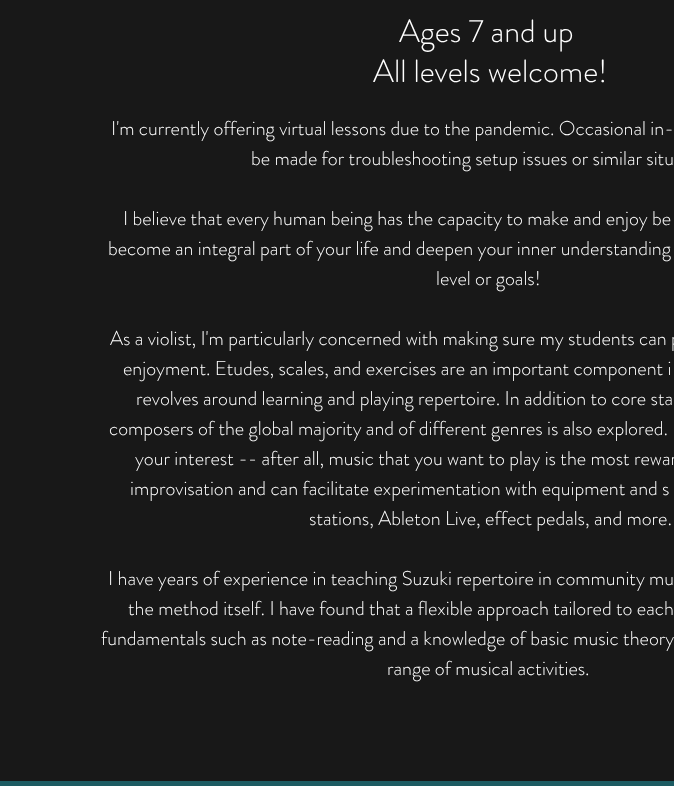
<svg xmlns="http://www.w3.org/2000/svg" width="674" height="786">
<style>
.a{font:300 32px 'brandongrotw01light';fill:#fff}
.b{font:300 20px 'brandongrotw01light';fill:#fff}
</style>
<rect width="100%" height="100%" fill="#181818"/>
<path fill="#1c5b62" d="M0 781h674v5H0z"/>
<text class="a" x="399" y="42">Ages 7 and up</text>
<text class="a" x="373" y="82">All levels welcome!</text>
<text class="b" x="111" y="135">I'm currently offering virtual lessons due to the pandemic. Occasional in-</text>
<text class="b" x="251" y="165">be made for troubleshooting setup issues or similar situ</text>
<text class="b" x="123" y="225">I believe that every human being has the capacity to make and enjoy be</text>
<text class="b" x="108" y="255">become an integral part of your life and deepen your inner understanding</text>
<text class="b" x="436" y="285">level or goals!</text>
<text class="b" x="110" y="345">As a violist, I'm particularly concerned with making sure my students can p</text>
<text class="b" x="123" y="375">enjoyment. Etudes, scales, and exercises are an important component i</text>
<text class="b" x="136" y="405">revolves around learning and playing repertoire. In addition to core sta</text>
<text class="b" x="109" y="435">composers of the global majority and of different genres is also explored.</text>
<text class="b" x="135" y="465">your interest -- after all, music that you want to play is the most rewar</text>
<text class="b" x="130" y="495">improvisation and can facilitate experimentation with equipment and s</text>
<text class="b" x="309" y="525">stations, Ableton Live, effect pedals, and more.</text>
<text class="b" x="108" y="585">I have years of experience in teaching Suzuki repertoire in community mu</text>
<text class="b" x="128" y="615">the method itself. I have found that a flexible approach tailored to each</text>
<text class="b" x="101" y="645">fundamentals such as note-reading and a knowledge of basic music theory</text>
<text class="b" x="387" y="675">range of musical activities.</text>
</svg>
